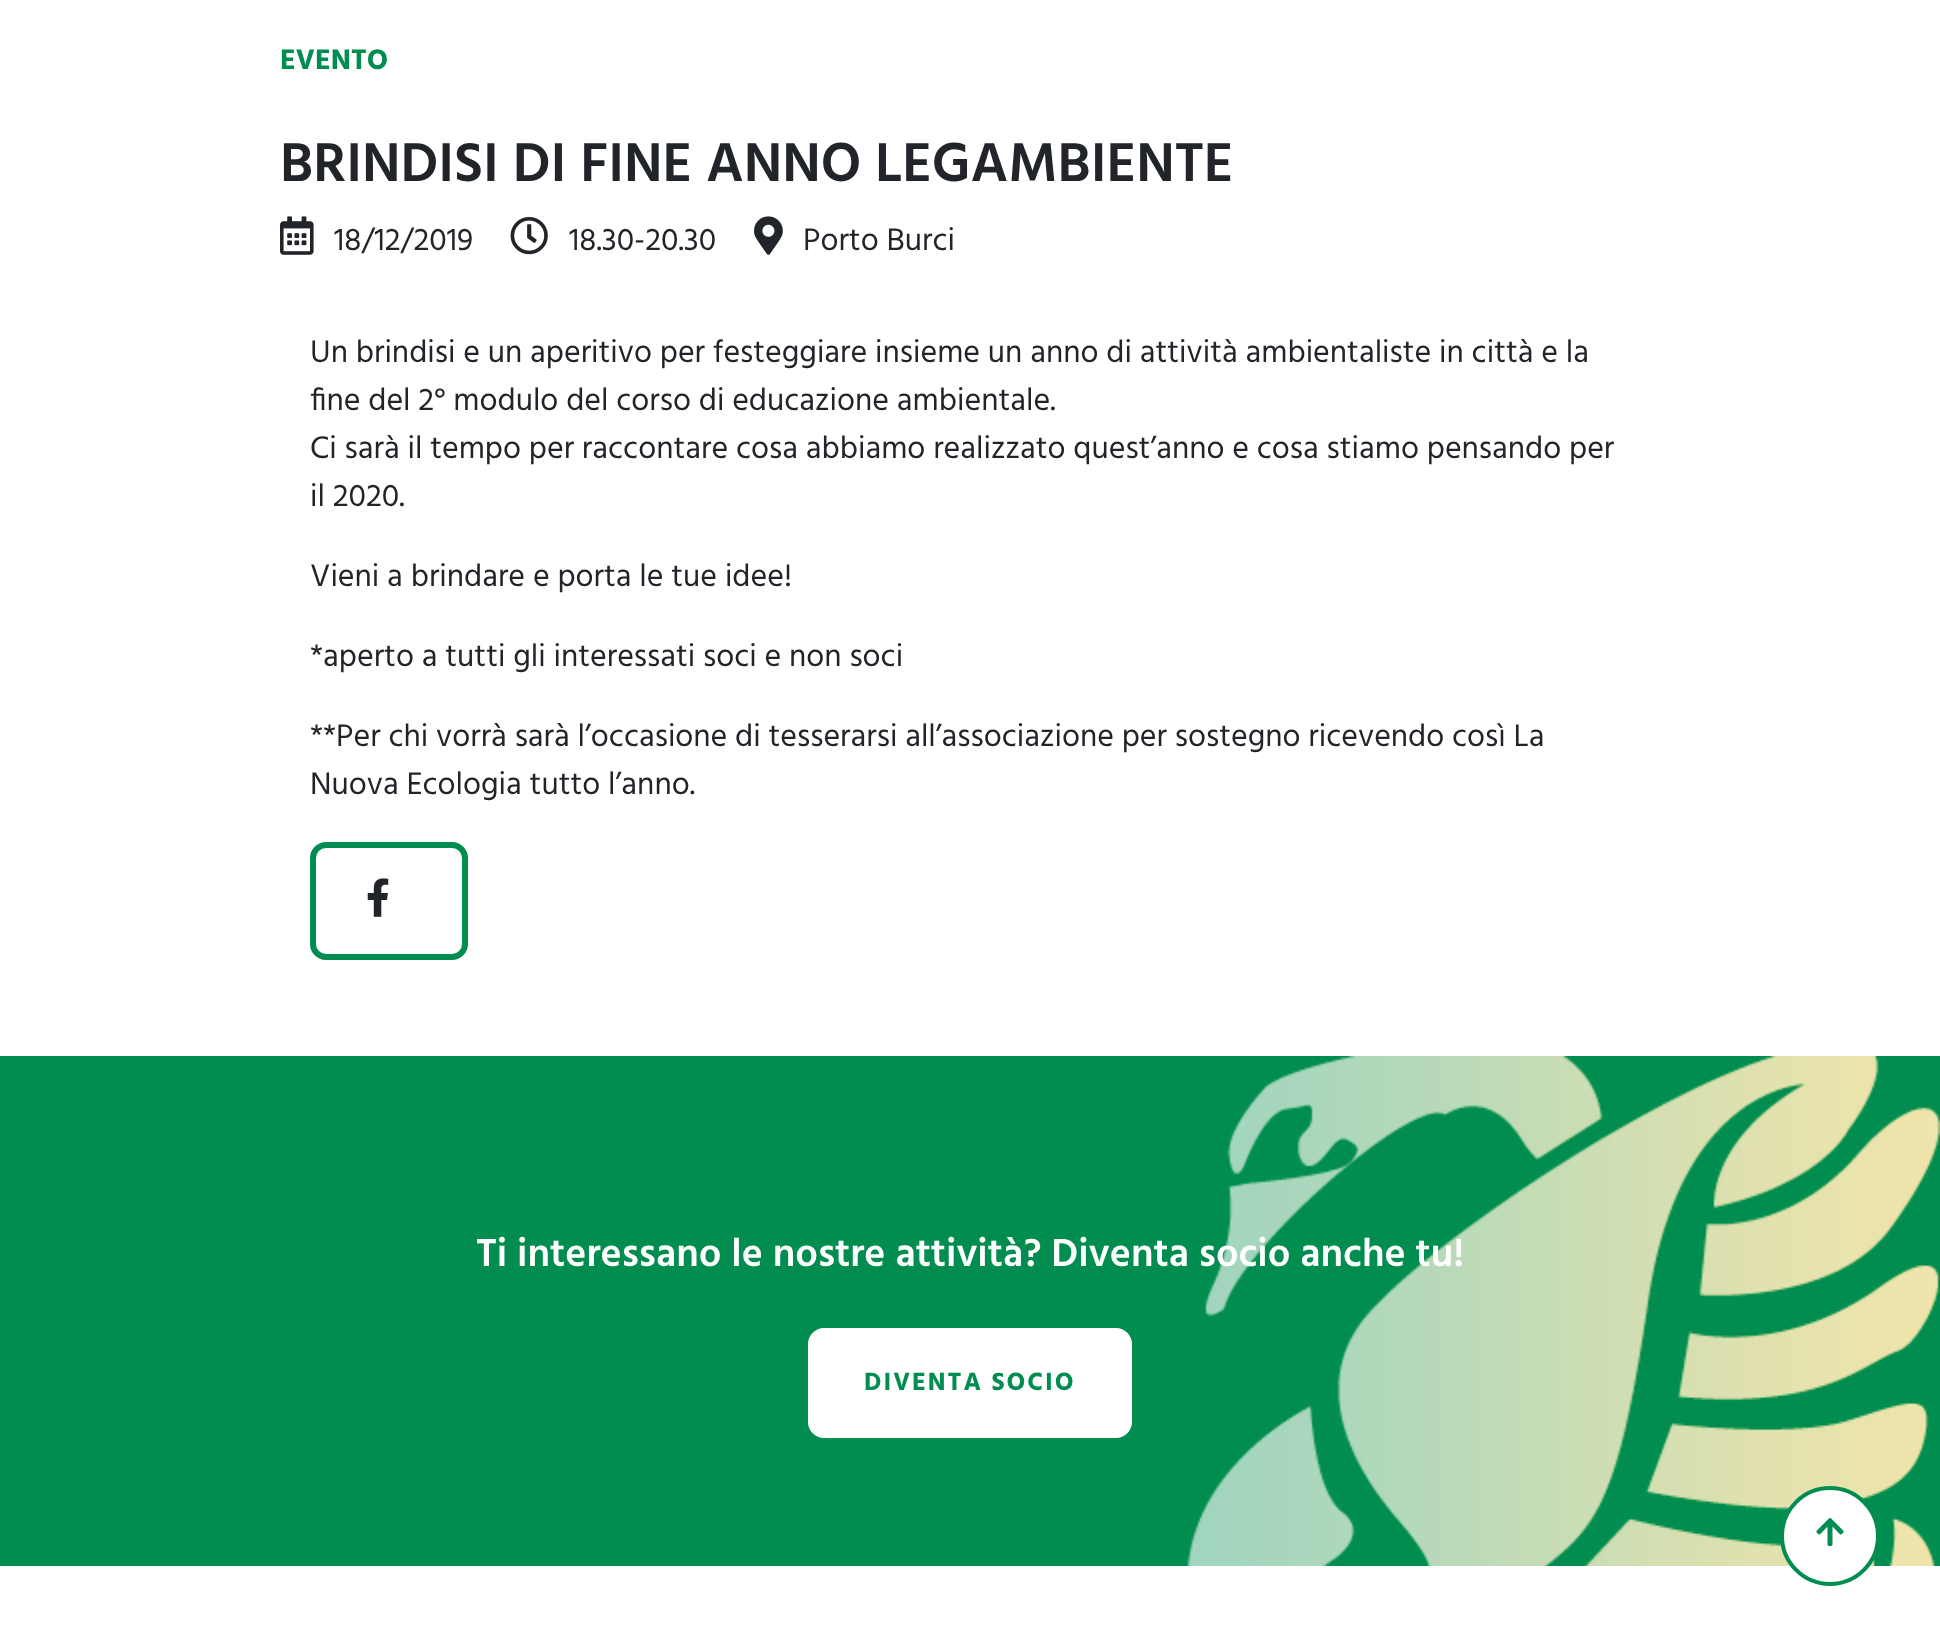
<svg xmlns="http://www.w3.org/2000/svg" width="1940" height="1625">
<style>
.a{font:bold 29px Hind;fill:#018d50}
.b{font:600 56px Hind;fill:#212529}
.c{font:32px Hind;fill:#212529}
.d{font:600 40px Hind;fill:#fff}
.e{font:bold 25.5px Hind;letter-spacing:2px;fill:#018d50}
</style>
<rect width="100%" height="100%" fill="#fff"/>
<image href="1.png" x="280" y="216" width="34" height="39"/>
<image href="2.png" x="510" y="217" width="38" height="38"/>
<image href="3.png" x="754" y="216" width="29" height="39"/>
<rect fill="none" stroke="#018d50" stroke-width="6" x="313" y="845" width="152" height="112" rx="13"/>
<image href="4.png" x="367" y="878" width="22" height="39"/>
<path fill="#018d50" d="M0 1056h1940v510H0z"/>
<image href="5.png" x="1187" y="1056" width="753" height="510"/>
<rect fill="#fff" stroke="#fff" stroke-width="6" x="811" y="1331" width="318" height="104" rx="13"/>
<circle fill="#fff" stroke="#018d50" stroke-width="4" cx="1830" cy="1536" r="48"/>
<image href="6.png" x="1816" y="1518" width="28" height="28"/>
<text class="a" x="280" y="69">EVENTO</text>
<text class="b" x="280" y="181">BRINDISI DI FINE ANNO LEGAMBIENTE</text>
<text class="c" x="334" y="250">18/12/2019</text>
<text class="c" x="569" y="250">18.30-20.30</text>
<text class="c" x="803" y="250">Porto Burci</text>
<text class="c" x="310" y="362">Un brindisi e un aperitivo per festeggiare insieme un anno di attività ambientaliste in città e la</text>
<text class="c" x="310" y="410">fine del 2° modulo del corso di educazione ambientale.</text>
<text class="c" x="310" y="458">Ci sarà il tempo per raccontare cosa abbiamo realizzato quest’anno e cosa stiamo pensando per</text>
<text class="c" x="310" y="506">il 2020.</text>
<text class="c" x="310" y="586">Vieni a brindare e porta le tue idee!</text>
<text class="c" x="310" y="666">*aperto a tutti gli interessati soci e non soci</text>
<text class="c" x="310" y="746">**Per chi vorrà sarà l’occasione di tesserarsi all’associazione per sostegno ricevendo così La</text>
<text class="c" x="310" y="794">Nuova Ecologia tutto l’anno.</text>
<text class="d" x="476" y="1266">Ti interessano le nostre attività? Diventa socio anche tu!</text>
<text class="e" x="864" y="1390">DIVENTA SOCIO</text>
</svg>
